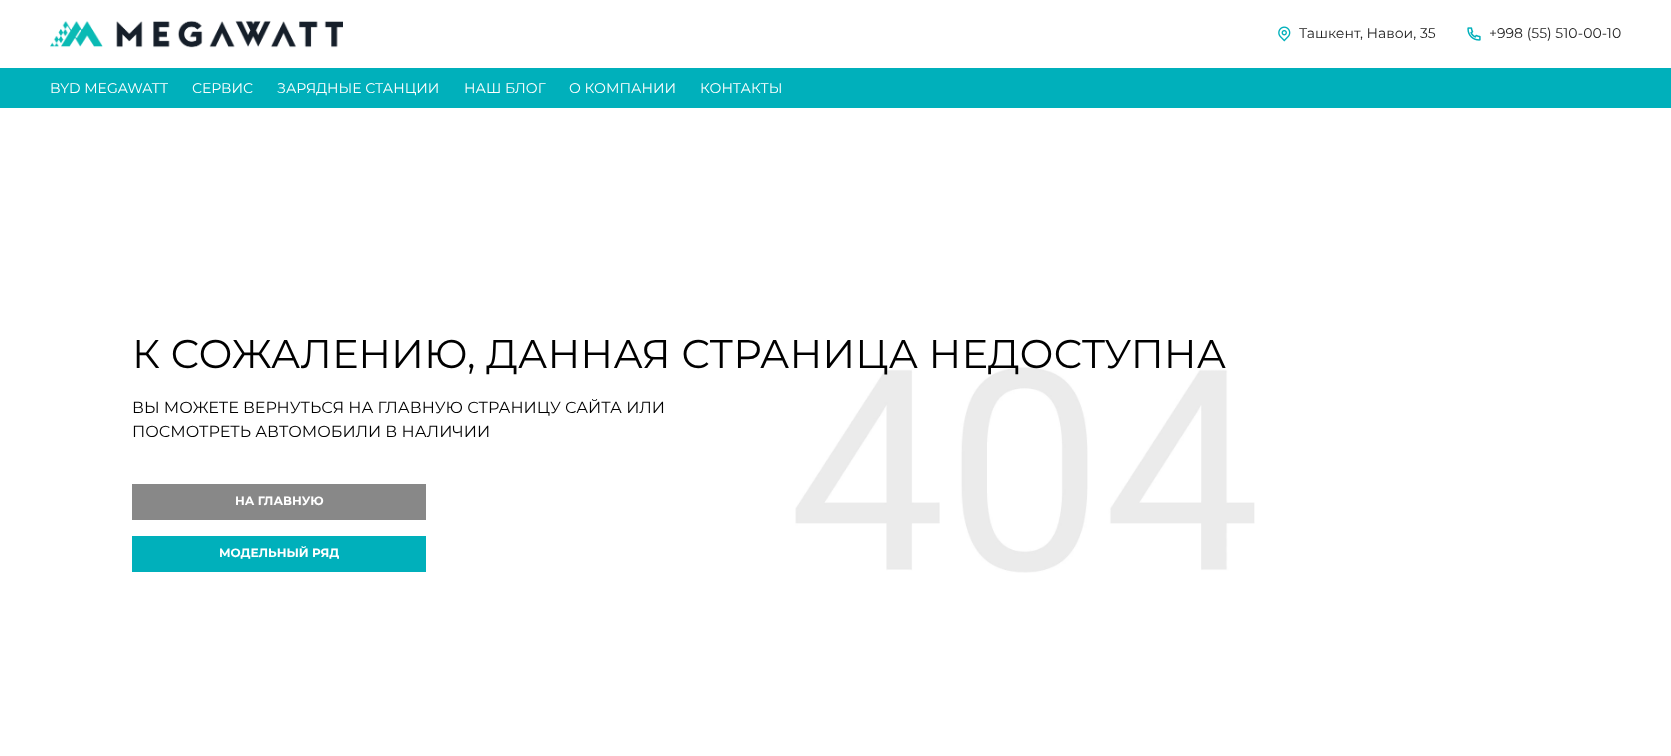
<svg xmlns="http://www.w3.org/2000/svg" width="1671" height="756">
<style>
.a{font:14px Montserrat;fill:#222}
.b{font:14px Montserrat;fill:#fff}
.c{font:40px Montserrat;fill:#000}
.d{font:16px Montserrat;fill:#000}
.e{font:bold 12px Montserrat;fill:#fff}
</style>
<rect width="100%" height="100%" fill="#fff"/>
<image href="1.png" x="50" y="20" width="293" height="28"/>
<image href="2.png" x="1278" y="26" width="13" height="16"/>
<image href="3.png" x="1467" y="27" width="14" height="14"/>
<path fill="#00b0bb" d="M0 68h1671v40H0z"/>
<path fill="#888" d="M132 484h294v36H132z"/>
<path fill="#00b0bb" d="M132 536h294v36H132z"/>
<image href="4.png" x="795" y="367" width="460" height="206"/>
<text class="a" x="1299" y="38">Ташкент, Навои, 35</text>
<text class="a" x="1489" y="38">+998 (55) 510-00-10</text>
<text class="b" x="50" y="93">BYD MEGAWATT</text>
<text class="b" x="192" y="93">СЕРВИС</text>
<text class="b" x="277" y="93">ЗАРЯДНЫЕ СТАНЦИИ</text>
<text class="b" x="464" y="93">НАШ БЛОГ</text>
<text class="b" x="569" y="93">О КОМПАНИИ</text>
<text class="b" x="700" y="93">КОНТАКТЫ</text>
<text class="c" x="132" y="368">К СОЖАЛЕНИЮ, ДАННАЯ СТРАНИЦА НЕДОСТУПНА</text>
<text class="d" x="132" y="413">ВЫ МОЖЕТЕ ВЕРНУТЬСЯ НА ГЛАВНУЮ СТРАНИЦУ САЙТА ИЛИ</text>
<text class="d" x="132" y="437">ПОСМОТРЕТЬ АВТОМОБИЛИ В НАЛИЧИИ</text>
<text class="e" x="235" y="505">НА ГЛАВНУЮ</text>
<text class="e" x="219" y="557">МОДЕЛЬНЫЙ РЯД</text>
</svg>
